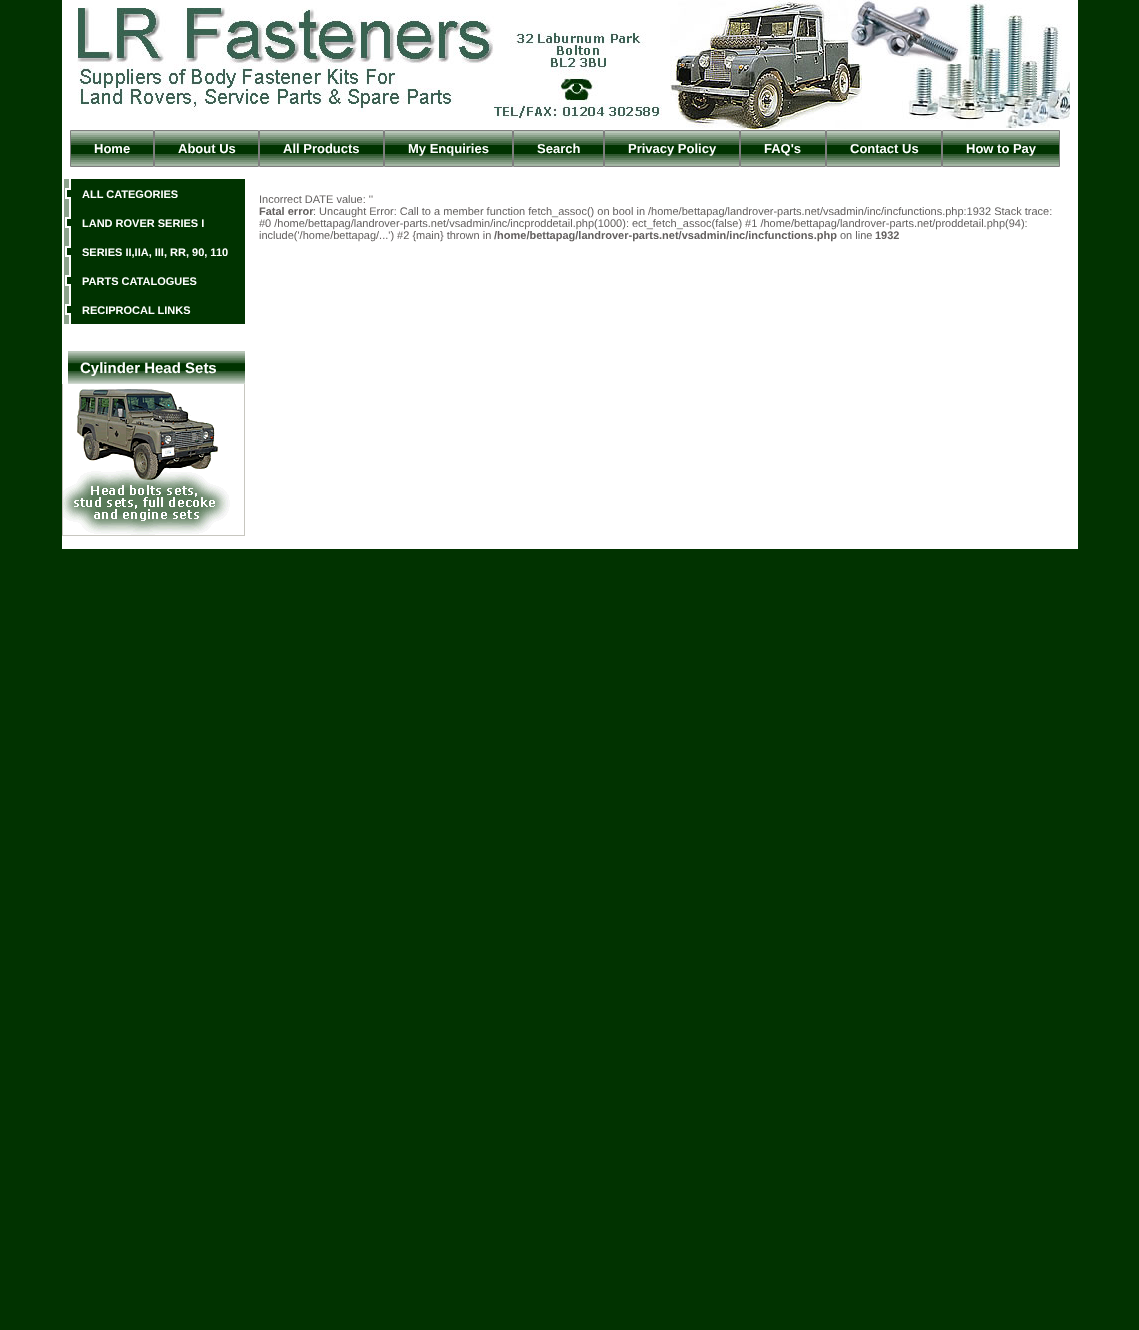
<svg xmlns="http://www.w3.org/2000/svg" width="1139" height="1330">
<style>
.a{font:bold 13px Liberation Sans;fill:#fff}
.b{font:bold 11px Liberation Sans;fill:#fff}
.c{font:bold 15px Liberation Sans;fill:#fff}
.d{font:11px Liberation Sans;fill:#625f5e}
.e{font:bold 11px Liberation Sans;fill:#625f5e}
</style>
<rect width="100%" height="100%" fill="#013300"/>
<path fill="#fff" d="M62 0h1016v549H62z"/>
<image href="1.png" x="77" y="7" width="585" height="113"/>
<image href="2.png" x="670" y="0" width="400" height="129"/>
<image href="3.png" x="71" y="131" width="82" height="35"/>
<path fill="none" stroke="#7e7e7e" d="M70.5 130.5h83v36H70.5z"/>
<image href="4.png" x="155" y="131" width="103" height="35"/>
<path fill="none" stroke="#7e7e7e" d="M154.5 130.5h104v36H154.5z"/>
<image href="5.png" x="260" y="131" width="123" height="35"/>
<path fill="none" stroke="#7e7e7e" d="M259.5 130.5h124v36H259.5z"/>
<image href="6.png" x="385" y="131" width="127" height="35"/>
<path fill="none" stroke="#7e7e7e" d="M384.5 130.5h128v36H384.5z"/>
<image href="7.png" x="514" y="131" width="89" height="35"/>
<path fill="none" stroke="#7e7e7e" d="M513.5 130.5h90v36H513.5z"/>
<image href="8.png" x="605" y="131" width="134" height="35"/>
<path fill="none" stroke="#7e7e7e" d="M604.5 130.5h135v36H604.5z"/>
<image href="9.png" x="741" y="131" width="84" height="35"/>
<path fill="none" stroke="#7e7e7e" d="M740.5 130.5h85v36H740.5z"/>
<image href="10.png" x="827" y="131" width="114" height="35"/>
<path fill="none" stroke="#7e7e7e" d="M826.5 130.5h115v36H826.5z"/>
<image href="11.png" x="943" y="131" width="116" height="35"/>
<path fill="none" stroke="#7e7e7e" d="M942.5 130.5h117v36H942.5z"/>
<image href="12.png" x="64" y="179" width="181" height="29"/>
<image href="12.png" x="64" y="208" width="181" height="29"/>
<image href="12.png" x="64" y="237" width="181" height="29"/>
<image href="12.png" x="64" y="266" width="181" height="29"/>
<image href="12.png" x="64" y="295" width="181" height="29"/>
<image href="13.png" x="68" y="351" width="177" height="33"/>
<path fill="#c7c6bf" d="M244 384h1v152H244z"/>
<path fill="#c7c6bf" d="M62 535h183v1H62z"/>
<path fill="#c7c6bf" d="M62 384h1v152H62z"/>
<image href="14.png" x="63" y="389" width="167" height="146"/>
<text class="a" x="94" y="153">Home</text>
<text class="a" x="178" y="153">About Us</text>
<text class="a" x="283" y="153">All Products</text>
<text class="a" x="408" y="153">My Enquiries</text>
<text class="a" x="537" y="153">Search</text>
<text class="a" x="628" y="153">Privacy Policy</text>
<text class="a" x="764" y="153">FAQ's</text>
<text class="a" x="850" y="153">Contact Us</text>
<text class="a" x="966" y="153">How to Pay</text>
<text class="b" x="82" y="198">ALL CATEGORIES</text>
<text class="b" x="82" y="227">LAND ROVER SERIES I</text>
<text class="b" x="82" y="256">SERIES II,IIA, III, RR, 90, 110</text>
<text class="b" x="82" y="285">PARTS CATALOGUES</text>
<text class="b" x="82" y="314">RECIPROCAL LINKS</text>
<text class="c" x="80" y="373">Cylinder Head Sets</text>
<text class="d" x="259" y="203">Incorrect DATE value: ''</text>
<text class="e" x="259" y="215">Fatal error</text>
<text class="d" x="313" y="215">: Uncaught Error: Call to a member function fetch_assoc() on bool in /home/bettapag/landrover-parts.net/vsadmin/inc/incfunctions.php:1932 Stack trace:</text>
<text class="d" x="259" y="227">#0 /home/bettapag/landrover-parts.net/vsadmin/inc/incproddetail.php(1000): ect_fetch_assoc(false) #1 /home/bettapag/landrover-parts.net/proddetail.php(94):</text>
<text class="d" x="259" y="239">include('/home/bettapag/...') #2 {main} thrown in</text>
<text class="e" x="494" y="239">/home/bettapag/landrover-parts.net/vsadmin/inc/incfunctions.php</text>
<text class="d" x="840" y="239">on line</text>
<text class="e" x="875" y="239">1932</text>
</svg>
